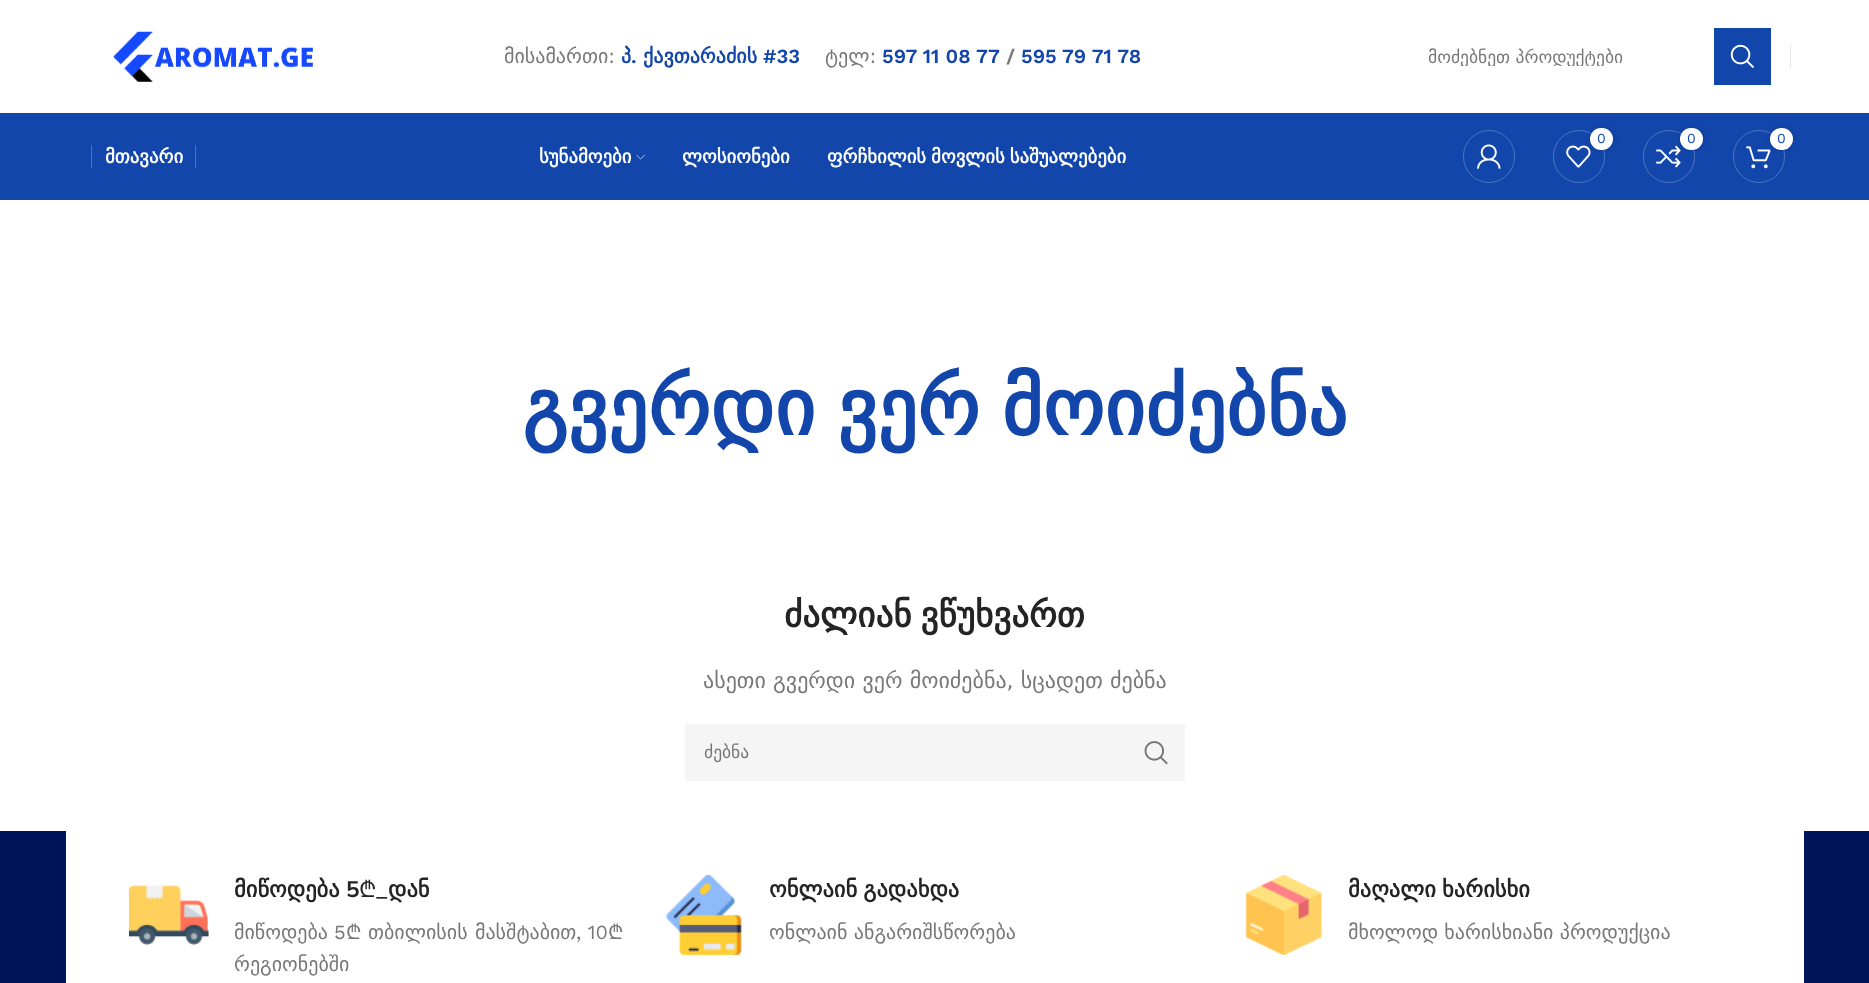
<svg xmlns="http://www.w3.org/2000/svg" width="1869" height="983">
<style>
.a{font:20px DejaVu Sans;fill:#777}
.b{font:bold 20px DejaVu Sans;fill:#1246ab}
.c{font:600 20px Work Sans;fill:#1246ab}
.d{font:600 20px Work Sans;fill:#777}
.e{font:17.5px DejaVu Sans;fill:#777}
.f{font:14px Work Sans;fill:#1246ab}
.g{font:bold 18.75px DejaVu Sans;fill:#fff}
.h{font:bold 78.5px DejaVu Sans;fill:#1246ab}
.i{font:bold 35px DejaVu Sans;fill:#242424}
.j{font:22px DejaVu Sans;fill:#777}
.k{font:bold 22.5px DejaVu Sans;fill:#242424}
.l{font:bold 22.5px Mulish;fill:#242424}
.m{font:22.5px Noto Sans;fill:#242424}
.n{font:20px Work Sans;fill:#777}
.o{font:20px Noto Sans;fill:#777}
</style>
<defs>
<clipPath id="clip1"><path d="M1428 46h286v20H1428z"/></clipPath>
</defs>
<rect width="100%" height="100%" fill="#fff"/>
<image href="1.png" x="113" y="31" width="200" height="51"/>
<path fill="#1246ab" d="M1714 28h57v57H1714z"/>
<image href="2.png" x="1730" y="44" width="24" height="25"/>
<path fill="#e4e4e4" d="M1790 45h1v23H1790z"/>
<path fill="#1246ab" d="M0 113h1869v87H0z"/>
<rect fill="none" stroke="#4d74c0" x="1463.5" y="130.5" width="51" height="52" rx="25.5"/>
<image href="3.png" x="1477" y="144" width="24" height="25"/>
<rect fill="none" stroke="#4d74c0" x="1553.5" y="130.5" width="51" height="52" rx="25.5"/>
<image href="4.png" x="1566" y="145" width="25" height="23"/>
<rect fill="#0000002b" filter="blur(2.5px)" x="1590" y="128" width="23" height="22" rx="11"/>
<rect fill="#fff" x="1590" y="128" width="23" height="22" rx="11"/>
<rect fill="none" stroke="#4d74c0" x="1643.5" y="130.5" width="51" height="52" rx="25.5"/>
<image href="5.png" x="1656" y="145" width="25" height="23"/>
<rect fill="#0000002b" filter="blur(2.5px)" x="1680" y="128" width="23" height="22" rx="11"/>
<rect fill="#fff" x="1680" y="128" width="23" height="22" rx="11"/>
<rect fill="none" stroke="#4d74c0" x="1733.5" y="130.5" width="51" height="52" rx="25.5"/>
<image href="6.png" x="1746" y="146" width="25" height="23"/>
<rect fill="#0000002b" filter="blur(2.5px)" x="1770" y="128" width="23" height="22" rx="11"/>
<rect fill="#fff" x="1770" y="128" width="23" height="22" rx="11"/>
<path fill="#4d74c0" d="M91 145h1v23H91z"/>
<path fill="#4d74c0" d="M195 145h1v23H195z"/>
<image href="7.png" x="636" y="154" width="9" height="6"/>
<path fill="#f5f5f5" d="M685 724h500v57H685z"/>
<image href="8.png" x="1144" y="741" width="24" height="24"/>
<path fill="#001459" d="M0 831h1869v152H0z"/>
<path fill="#fff" d="M66 831h1738v152H66z"/>
<image href="9.png" x="128" y="885" width="81" height="61"/>
<image href="10.png" x="666" y="875" width="76" height="80"/>
<image href="11.png" x="1245" y="875" width="78" height="80"/>
<text class="a" x="504" y="63">მისამართი:</text>
<text class="b" x="621" y="63">პ</text>
<text class="c" x="631" y="63">.</text>
<text class="b" x="643" y="63">ქავთარაძის</text>
<text class="c" x="763" y="63">#33</text>
<text class="a" x="825" y="63">ტელ:</text>
<text class="c" x="882" y="63">597 11 08 77</text>
<text class="d" x="1006" y="63">/</text>
<text class="c" x="1021" y="63">595 79 71 78</text>
<g clip-path="url(#clip1)">
<text class="e" x="1428" y="63">მოძებნეთ პროდუქტები</text>
</g>
<text class="f" x="1597" y="143">0</text>
<text class="f" x="1687" y="143">0</text>
<text class="f" x="1777" y="143">0</text>
<text class="g" x="105" y="163">მთავარი</text>
<text class="g" x="539" y="163">სუნამოები</text>
<text class="g" x="682" y="163">ლოსიონები</text>
<text class="g" x="827" y="163" word-spacing="-1">ფრჩხილის მოვლის საშუალებები</text>
<text class="h" x="522" y="435" word-spacing="-3">გვერდი ვერ მოიძებნა</text>
<text class="i" x="784" y="627" word-spacing="-2">ძალიან ვწუხვართ</text>
<text class="j" x="703" y="688" word-spacing="0.25">ასეთი გვერდი ვერ მოიძებნა, სცადეთ ძებნა</text>
<text class="e" x="704" y="758">ძებნა</text>
<text class="k" x="234" y="897">მიწოდება</text>
<text class="l" x="346" y="897">5</text>
<text class="m" x="359" y="897">₾</text>
<text class="l" x="376" y="897">_</text>
<text class="k" x="388" y="897">დან</text>
<text class="a" x="234" y="939">მიწოდება</text>
<text class="n" x="334" y="939">5</text>
<text class="o" x="346" y="939">₾</text>
<text class="a" x="368" y="939">თბილისის</text>
<text class="a" x="475" y="939">მასშტაბით</text>
<text class="n" x="576" y="939">, 10</text>
<text class="o" x="608" y="939">₾</text>
<text class="a" x="234" y="971">რეგიონებში</text>
<text class="k" x="769" y="897" word-spacing="-1">ონლაინ გადახდა</text>
<text class="a" x="769" y="939">ონლაინ ანგარიშსწორება</text>
<text class="k" x="1348" y="897" word-spacing="-1">მაღალი ხარისხი</text>
<text class="a" x="1348" y="939">მხოლოდ ხარისხიანი პროდუქცია</text>
</svg>
